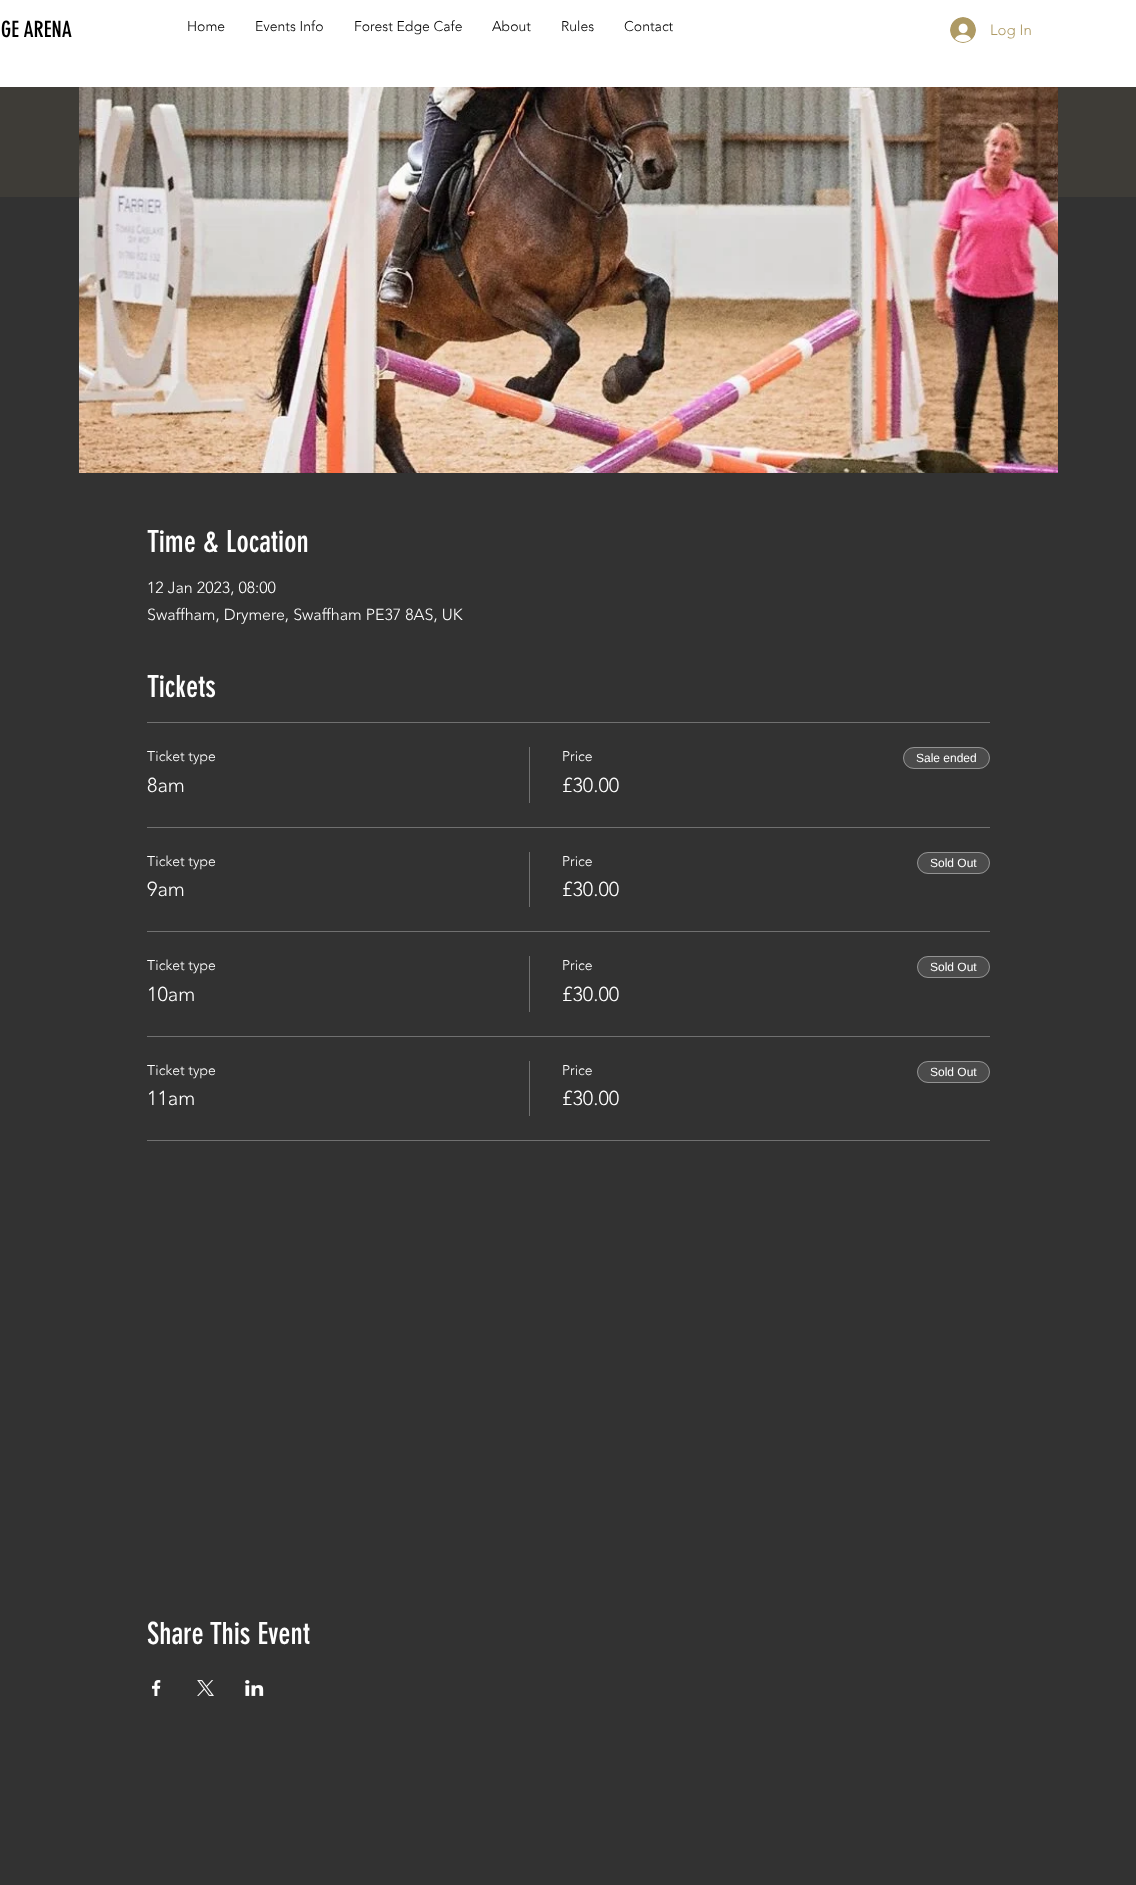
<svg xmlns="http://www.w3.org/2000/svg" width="1136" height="1885">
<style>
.a{font:22px 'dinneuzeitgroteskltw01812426';fill:#000}
.b{font:300 14px 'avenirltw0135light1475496';fill:#000}
.c{font:300 15px 'avenirltw0135light1475496';fill:#ae9a64}
.d{font:30px 'dinneuzeitgroteskltw01812426';fill:#fff}
.e{font:300 16px 'avenirltw0135light1475496';fill:#fff}
.f{font:300 14px 'avenirltw0135light1475496';fill:#fff}
.g{font:300 20px 'avenirltw0135light1475496';fill:#fff}
.h{font:12px Liberation Sans;fill:#fff}
</style>
<rect width="100%" height="100%" fill="#323232"/>
<path fill="#fff" d="M0 0h1136v87H0z"/>
<image href="1.png" x="950" y="17" width="26" height="26"/>
<path fill="#3e3c37" d="M0 87h1136v110H0z"/>
<image href="2.png" x="79" y="87" width="979" height="386"/>
<path fill="#707070" d="M147 722h843v1H147z"/>
<path fill="#707070" d="M147 827h843v1H147z"/>
<path fill="#707070" d="M529 747h1v56H529z"/>
<rect fill="#4b4b4b" x="903" y="747" width="87" height="22" rx="11"/>
<rect fill="none" stroke="#ffffff66" x="903.5" y="747.5" width="86" height="21" rx="10.5"/>
<path fill="#707070" d="M147 931h843v1H147z"/>
<path fill="#707070" d="M529 852h1v55H529z"/>
<rect fill="#4b4b4b" x="917" y="852" width="73" height="22" rx="11"/>
<rect fill="none" stroke="#ffffff66" x="917.5" y="852.5" width="72" height="21" rx="10.5"/>
<path fill="#707070" d="M147 1036h843v1H147z"/>
<path fill="#707070" d="M529 956h1v56H529z"/>
<rect fill="#4b4b4b" x="917" y="956" width="73" height="22" rx="11"/>
<rect fill="none" stroke="#ffffff66" x="917.5" y="956.5" width="72" height="21" rx="10.5"/>
<path fill="#707070" d="M147 1140h843v1H147z"/>
<path fill="#707070" d="M529 1061h1v55H529z"/>
<rect fill="#4b4b4b" x="917" y="1061" width="73" height="22" rx="11"/>
<rect fill="none" stroke="#ffffff66" x="917.5" y="1061.5" width="72" height="21" rx="10.5"/>
<image href="3.png" x="152" y="1680" width="9" height="16"/>
<image href="4.png" x="197" y="1680" width="17" height="16"/>
<image href="5.png" x="245" y="1680" width="19" height="16"/>
<text class="a" x="1" y="37">GE ARENA</text>
<text class="b" x="187" y="31">Home</text>
<text class="b" x="255" y="31">Events Info</text>
<text class="b" x="354" y="31">Forest Edge Cafe</text>
<text class="b" x="492" y="31">About</text>
<text class="b" x="561" y="31">Rules</text>
<text class="b" x="624" y="31">Contact</text>
<text class="c" x="990" y="35">Log In</text>
<text class="d" x="147" y="552">Time &amp; Location</text>
<text class="e" x="147" y="593">12 Jan 2023, 08:00</text>
<text class="e" x="147" y="620">Swaffham, Drymere, Swaffham PE37 8AS, UK</text>
<text class="d" x="147" y="697">Tickets</text>
<text class="f" x="147" y="761">Ticket type</text>
<text class="g" x="147" y="792">8am</text>
<text class="f" x="562" y="761">Price</text>
<text class="g" x="562" y="792">£30.00</text>
<text class="h" x="916" y="762">Sale ended</text>
<text class="f" x="147" y="866">Ticket type</text>
<text class="g" x="147" y="896">9am</text>
<text class="f" x="562" y="866">Price</text>
<text class="g" x="562" y="896">£30.00</text>
<text class="h" x="930" y="867">Sold Out</text>
<text class="f" x="147" y="970">Ticket type</text>
<text class="g" x="147" y="1001">10am</text>
<text class="f" x="562" y="970">Price</text>
<text class="g" x="562" y="1001">£30.00</text>
<text class="h" x="930" y="971">Sold Out</text>
<text class="f" x="147" y="1075">Ticket type</text>
<text class="g" x="147" y="1105">11am</text>
<text class="f" x="562" y="1075">Price</text>
<text class="g" x="562" y="1105">£30.00</text>
<text class="h" x="930" y="1076">Sold Out</text>
<text class="d" x="147" y="1644">Share This Event</text>
</svg>
